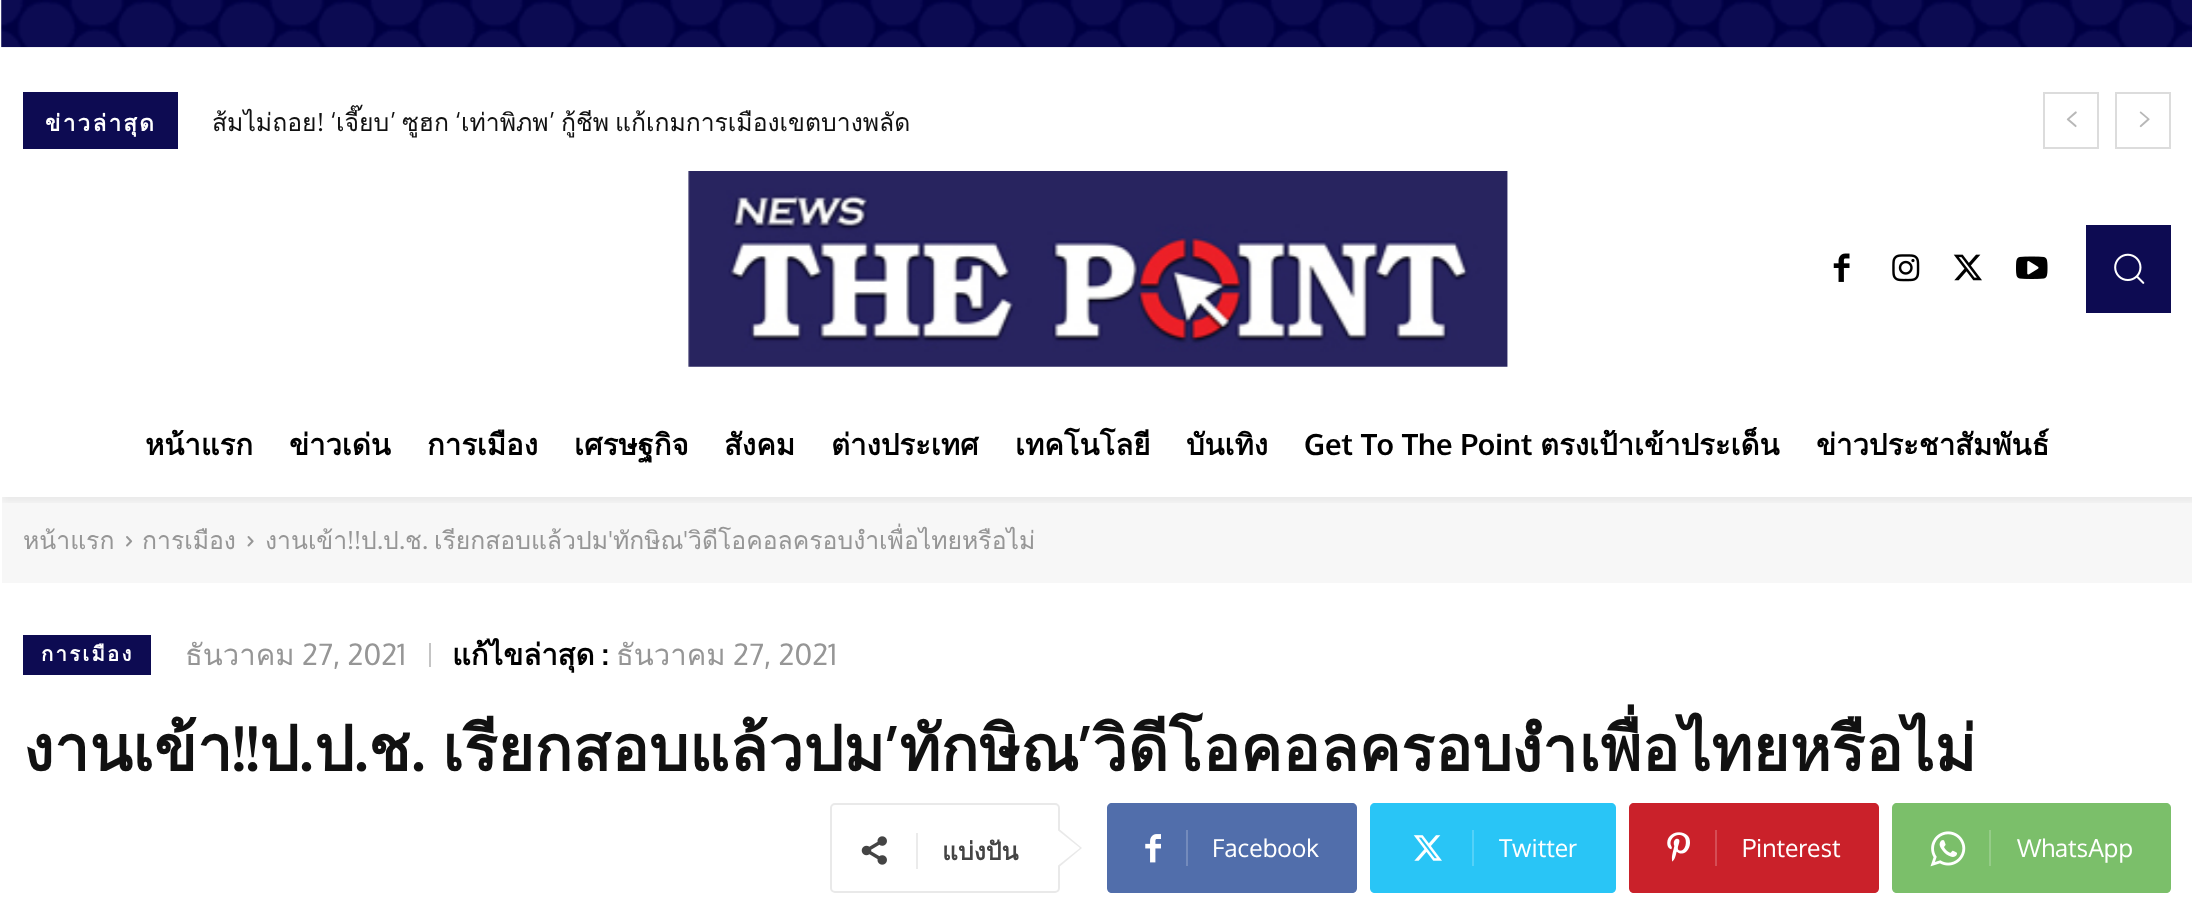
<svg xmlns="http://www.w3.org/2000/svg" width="2192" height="909">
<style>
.a{font:bold 22.5px Loma;letter-spacing:2.25px;fill:#fff}
.b{font:24.75px Loma;fill:#111}
.c{font:24.75px Oxygen;fill:#111}
.d{font:bold 29.25px Loma;fill:#000}
.e{font:bold 29.25px Oxygen;fill:#000}
.f{font:24.75px Loma;fill:#969696}
.g{font:24.75px Oxygen;fill:#969696}
.h{font:bold 20.25px Loma;letter-spacing:2.25px;fill:#fff}
.i{font:29.25px Loma;fill:#969696}
.j{font:29.25px Oxygen;fill:#969696}
.k{font:bold 63px Loma;fill:#111}
.l{font:bold 63px Oxygen;fill:#111}
.m{font:bold 24.75px Loma;fill:#444}
.n{font:24.75px Oxygen;fill:#fff}
</style>
<defs>
<clipPath id="clip1"><path d="M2 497h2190v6H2z"/></clipPath>
<clipPath id="clip2"><path d="M212 92h940v57H212z"/></clipPath>
</defs>
<rect width="100%" height="100%" fill="#fff"/>
<image href="1.png" x="1" y="0" width="2191" height="48"/>
<path fill="#0d0b52" d="M23 92h155v57H23z"/>
<path fill="none" stroke="#dcdcdc" stroke-width="2" d="M2044 93h54v55H2044z"/>
<image href="2.png" x="2066" y="111" width="11" height="17"/>
<path fill="none" stroke="#dcdcdc" stroke-width="2" d="M2116 93h54v55H2116z"/>
<image href="3.png" x="2139" y="111" width="11" height="17"/>
<image href="4.png" x="688" y="171" width="820" height="196"/>
<image href="5.png" x="1833" y="253" width="17" height="29"/>
<image href="6.png" x="1892" y="254" width="28" height="28"/>
<image href="7.png" x="1953" y="254" width="29" height="27"/>
<image href="8.png" x="2016" y="256" width="32" height="23"/>
<path fill="#0d0b52" d="M2086 225h85v88H2086z"/>
<image href="9.png" x="2114" y="253" width="31" height="31"/>
<path fill="#f7f7f7" d="M2 497h2190v86H2z"/>
<g clip-path="url(#clip1)">
<path fill="#0000000d" filter="blur(3.5px)" d="M2 394h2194v108H2z"/>
</g>
<image href="10.png" x="126" y="536" width="7" height="11"/>
<image href="11.png" x="247" y="536" width="7" height="11"/>
<path fill="#0d0b52" d="M23 635h128v40H23z"/>
<path fill="#c4c4c4" d="M429 643h2v24H429z"/>
<rect fill="none" stroke="#e9e9e9" stroke-width="2" x="831" y="804" width="228" height="88" rx="4"/>
<path fill="#e9e9e9" d="M1058 868v-40l24 20z"/>
<image href="12.png" x="861" y="836" width="26" height="29"/>
<path fill="#ebebeb" d="M916 833h2v36H916z"/>
<path fill="#fff" d="M1057.5 866v-36l22.5 18z"/>
<path fill="#516eab" d="M1186 803h166c3 0 5 2 5 5v80c0 3-2 5-5 5h-166z"/>
<path fill="#516eab" d="M1112 803h87v90h-87c-3 0-5-2-5-5v-80c0-3 2-5 5-5z"/>
<image href="13.png" x="1145" y="834" width="16" height="29"/>
<path fill="#748bbc" d="M1186 830h2v36H1186z"/>
<path fill="#29c5f6" d="M1472 803h139c3 0 5 2 5 5v80c0 3-2 5-5 5h-139z"/>
<path fill="#29c5f6" d="M1375 803h110v90h-110c-3 0-5-2-5-5v-80c0-3 2-5 5-5z"/>
<image href="14.png" x="1413" y="835" width="29" height="26"/>
<path fill="#54d1f8" d="M1472 830h2v36H1472z"/>
<path fill="#ca212a" d="M1715 803h159c3 0 5 2 5 5v80c0 3-2 5-5 5h-159z"/>
<path fill="#ca212a" d="M1634 803h94v90h-94c-3 0-5-2-5-5v-80c0-3 2-5 5-5z"/>
<image href="15.png" x="1667" y="832" width="23" height="30"/>
<path fill="#d54d55" d="M1715 830h2v36H1715z"/>
<path fill="#7bbf6a" d="M1989 803h177c3 0 5 2 5 5v80c0 3-2 5-5 5h-177z"/>
<path fill="#7bbf6a" d="M1897 803h106v90h-106c-3 0-5-2-5-5v-80c0-3 2-5 5-5z"/>
<image href="16.png" x="1930" y="831" width="36" height="36"/>
<path fill="#95cc88" d="M1989 830h2v36H1989z"/>
<text class="a" x="45" y="131">ข่าวล่าสุด</text>
<g clip-path="url(#clip2)">
<text class="b" x="212" y="131">ส้มไม่ถอย</text>
</g>
<text class="c" x="317" y="131">! ‘</text>
<text class="b" x="336" y="131">เจี๊ยบ</text>
<text class="c" x="390" y="131">’</text>
<text class="c" x="455" y="131">‘</text>
<text class="b" x="461" y="131">เท่าพิภพ</text>
<text class="b" x="615" y="131">แก้เกมการเมืองเขตบางพลัด</text>
<text class="c" x="549" y="131">’</text>
<text class="b" x="561" y="131">กู้ชีพ</text>
<text class="b" x="402" y="131">ซูฮก</text>
<text class="d" x="145" y="455">หน้าแรก</text>
<text class="d" x="289" y="455">ข่าวเด่น</text>
<text class="d" x="427" y="455">การเมือง</text>
<text class="d" x="574" y="455">เศรษฐกิจ</text>
<text class="d" x="724" y="455">สังคม</text>
<text class="d" x="831" y="455">ต่างประเทศ</text>
<text class="d" x="1015" y="455">เทคโนโลยี</text>
<text class="d" x="1186" y="455">บันเทิง</text>
<text class="e" x="1304" y="455">Get To The Point</text>
<text class="d" x="1540" y="455">ตรงเป้าเข้าประเด็น</text>
<text class="d" x="1816" y="455">ข่าวประชาสัมพันธ์</text>
<text class="f" x="23" y="549">หน้าแรก</text>
<text class="f" x="142" y="549">การเมือง</text>
<text class="f" x="265" y="549">งานเข้า</text>
<text class="g" x="347" y="549">!!</text>
<text class="f" x="361" y="549">ป</text>
<text class="f" x="383" y="549">ป</text>
<text class="f" x="434" y="549">เรียกสอบแล้วปม</text>
<text class="f" x="405" y="549">ช</text>
<text class="g" x="608" y="549">'</text>
<text class="f" x="613" y="549">ทักษิณ</text>
<text class="g" x="683" y="549">'</text>
<text class="f" x="688" y="549">วิดีโอคอลครอบงำเพื่อไทยหรือไม่</text>
<text class="g" x="377" y="549">.</text>
<text class="g" x="399" y="549">.</text>
<text class="g" x="422" y="549">.</text>
<text class="h" x="41" y="661">การเมือง</text>
<text class="i" x="185" y="665">ธันวาคม</text>
<text class="j" x="302" y="665">27, 2021</text>
<text class="d" x="452" y="665">แก้ไขล่าสุด</text>
<text class="j" x="733" y="665">27, 2021</text>
<text class="e" x="602" y="665">:</text>
<text class="i" x="616" y="665">ธันวาคม</text>
<text class="k" x="23" y="771">งานเข้า</text>
<text class="k" x="259" y="771">ป</text>
<text class="k" x="314" y="771">ป</text>
<text class="k" x="442" y="771">เรียกสอบแล้วปม</text>
<text class="l" x="232" y="771">!!</text>
<text class="l" x="299" y="771">.</text>
<text class="l" x="354" y="771">.</text>
<text class="k" x="368" y="771">ช</text>
<text class="l" x="411" y="771">.</text>
<text class="l" x="885" y="771">’</text>
<text class="k" x="899" y="771">ทักษิณ</text>
<text class="l" x="1078" y="771">’</text>
<text class="k" x="1092" y="771">วิดีโอคอลครอบงำเพื่อไทยหรือไม่</text>
<text class="m" x="942" y="860">แบ่งปัน</text>
<text class="n" x="1212" y="857">Facebook</text>
<text class="n" x="1499" y="857">Twitter</text>
<text class="n" x="1742" y="857">Pinterest</text>
<text class="n" x="2017" y="857">WhatsApp</text>
</svg>
